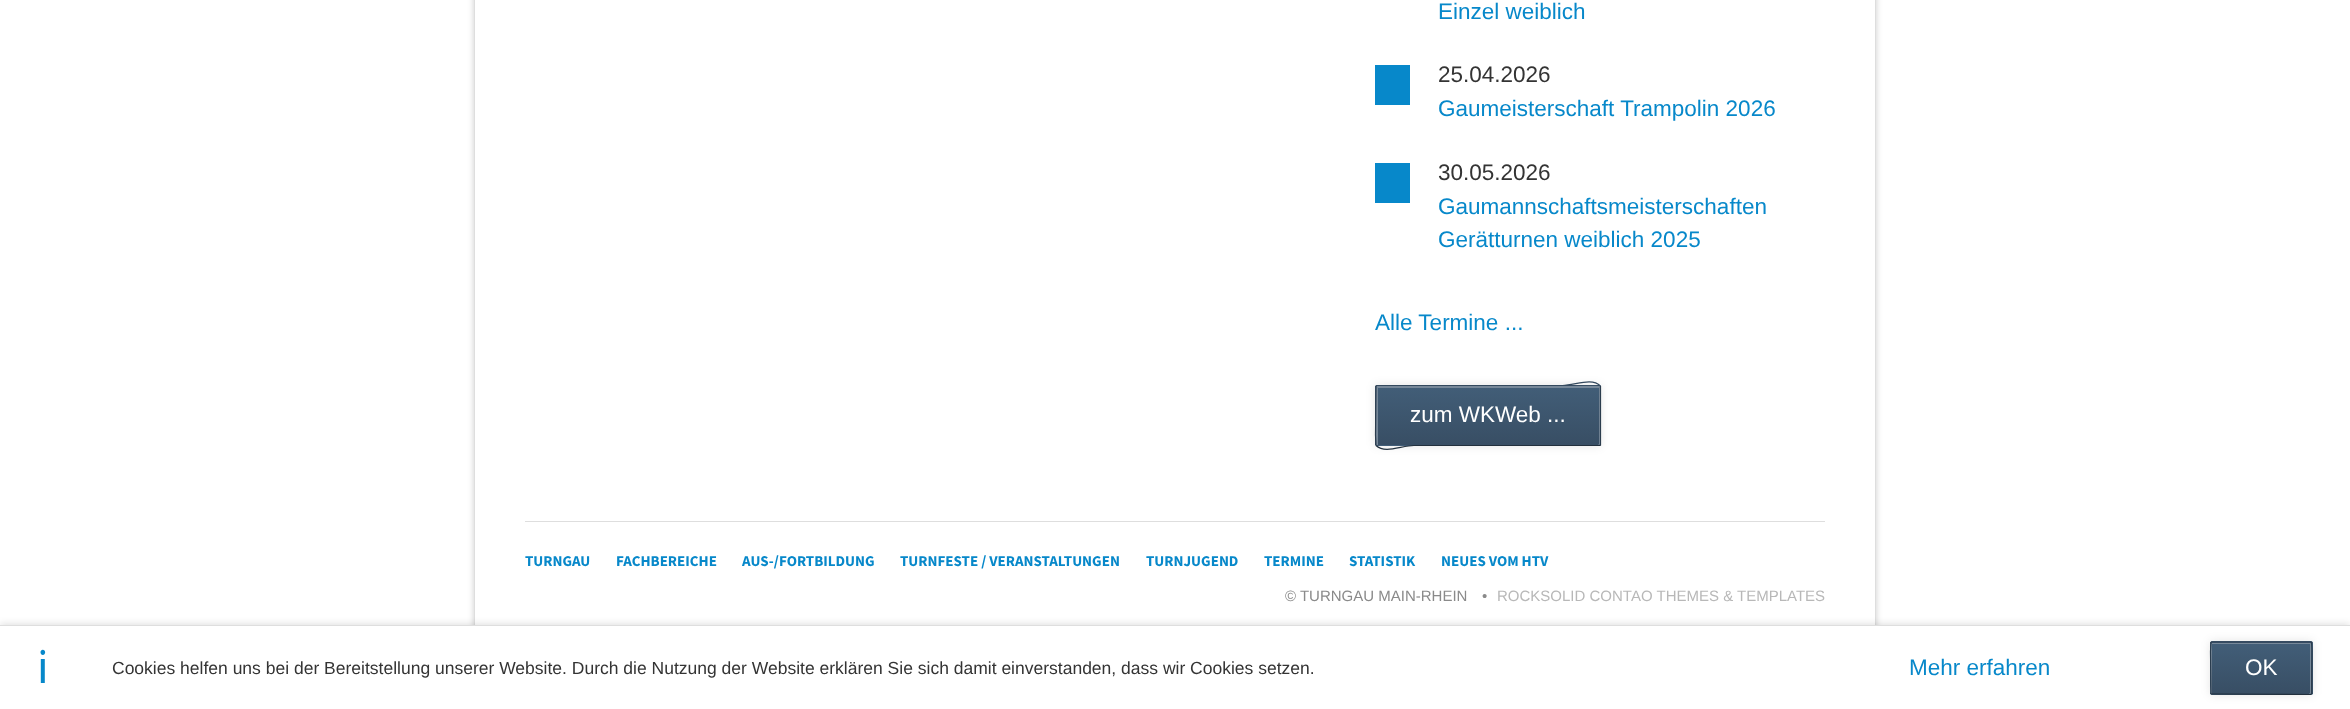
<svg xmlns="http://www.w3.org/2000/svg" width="2350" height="709">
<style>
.a{font:22.5px Liberation Sans;fill:#0788ca}
.b{font:22.5px Liberation Sans;fill:#343434}
.c{font:22.5px Liberation Sans;fill:#fff}
.d{font:bold 15px Source Sans Pro;fill:#0788ca}
.e{font:15px Liberation Sans;fill:#8a8a8a}
.f{font:15px Liberation Sans;fill:#b8b8b8}
.g{font:45px Noto Sans;fill:#0788ca}
.h{font:17.5px Liberation Sans;fill:#343434}
</style>
<defs>
<clipPath id="clip1"><path d="M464 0h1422v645h-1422zm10-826h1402v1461h-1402z" clip-rule="evenodd"/></clipPath>
<clipPath id="clip2"><rect x="1375" y="385" width="226" height="61" rx="2"/></clipPath>
<linearGradient id="g1" gradientUnits="userSpaceOnUse" x1="1488" y1="328" x2="1488" y2="386"><stop offset="0" stop-color="#425e78"/><stop offset="1" stop-color="#384e64"/></linearGradient>
<linearGradient id="g2" gradientUnits="userSpaceOnUse" x1="1488" y1="386" x2="1488" y2="445"><stop offset="0" stop-color="#425e78"/><stop offset="1" stop-color="#384e64"/></linearGradient>
<linearGradient id="g3" gradientUnits="userSpaceOnUse" x1="1488" y1="445" x2="1488" y2="504"><stop offset="0" stop-color="#425e78"/><stop offset="1" stop-color="#384e64"/></linearGradient>
<linearGradient id="g4" gradientUnits="userSpaceOnUse" x1="2261" y1="591" x2="2261" y2="643"><stop offset="0" stop-color="#425e78"/><stop offset="1" stop-color="#384e64"/></linearGradient>
<linearGradient id="g5" gradientUnits="userSpaceOnUse" x1="2261" y1="643" x2="2261" y2="694"><stop offset="0" stop-color="#425e78"/><stop offset="1" stop-color="#384e64"/></linearGradient>
<clipPath id="clip3"><rect x="2210" y="641" width="103" height="54" rx="2"/></clipPath>
<linearGradient id="g6" gradientUnits="userSpaceOnUse" x1="2261" y1="694" x2="2261" y2="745"><stop offset="0" stop-color="#425e78"/><stop offset="1" stop-color="#384e64"/></linearGradient>
</defs>
<rect width="100%" height="100%" fill="#fff"/>
<g clip-path="url(#clip1)">
<path fill="#00000033" filter="blur(3px)" d="M474 -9h1402v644H474z"/>
</g>
<path fill="#dedede" d="M1875 0h1v625H1875z"/>
<path fill="#dedede" d="M474 0h1v625H474z"/>
<path fill="#0788ca" d="M1375 65h35v40H1375z"/>
<path fill="#0788ca" d="M1375 163h35v40H1375z"/>
<rect fill="#0000001a" filter="blur(5px)" x="1375" y="385" width="226" height="61" rx="2"/>
<g clip-path="url(#clip2)">
<path fill="url(#g1)" d="M1375 385h226v1H1375z"/>
</g>
<path fill="url(#g2)" d="M1375 386h225v59H1375z"/>
<g clip-path="url(#clip2)">
<path fill="url(#g3)" d="M1375 445h226v1H1375z"/>
</g>
<path fill="#789" d="M1598 445c5 0 2-3 2-10v-39c0-7 3-10-2-10l1 1v57z"/>
<path fill="#789" d="M1378 388h222v-2h-224v58v1h2z"/>
<path fill="none" stroke="#34495e" stroke-width="1.2" d="M1376 386l1-.5h185.5c12.5 0 29-8.5 38 .5"/>
<path fill="none" stroke="#2b3c4d" stroke-width="1.2" d="M1600.5 386v10.5v49"/>
<path fill="none" stroke="#22303d" stroke-width="1.2" d="M1600.5 445.5h-1h-185.5c-12.5 0-29 8.5-38 0"/>
<path fill="none" stroke="#2b3c4d" stroke-width="1.2" d="M1376 445.5l-.5-10.5l.5-49"/>
<path fill="#dedede" d="M525 521h1300v1H525z"/>
<path fill="#0000001a" filter="blur(3px)" d="M0 623h2350v85H0z"/>
<path fill="#fff" d="M0 626h2350v83H0z"/>
<path fill="#dedede" d="M0 625h2350v1H0z"/>
<rect fill="#0000001a" filter="blur(5px)" x="2210" y="641" width="103" height="54" rx="2"/>
<path fill="url(#g4)" d="M2212 641h99c1 0 2 1 2 2h-103c0-1 1-2 2-2z"/>
<path fill="url(#g5)" d="M2210 643h103v51H2210z"/>
<g clip-path="url(#clip3)">
<path fill="url(#g6)" d="M2210 694h103v1H2210z"/>
</g>
<path fill="#789" d="M2309 694c5 0 2-2 2-9v-33c0-1 2-9-1-9v50z"/>
<path fill="#789" d="M2212 643l-1 1v41c0 1-2 9 1 9v-50h99l-1-1z"/>
<path fill="none" stroke="#34495e" stroke-width="1.2" d="M2211 642h1h99.5"/>
<path fill="none" stroke="#2b3c4d" stroke-width="1.2" d="M2311.5 642l.5 9.5l-.5 42.5"/>
<path fill="none" stroke="#22303d" stroke-width="1.2" d="M2311.5 694l-1 .5l-99.5-.5"/>
<path fill="none" stroke="#2b3c4d" stroke-width="1.2" d="M2211 694l-.5-42.5l.5-9.5"/>
<text class="a" x="1438" y="19">Einzel weiblich</text>
<text class="b" x="1438" y="82">25.04.2026</text>
<text class="a" x="1438" y="116">Gaumeisterschaft Trampolin 2026</text>
<text class="b" x="1438" y="180">30.05.2026</text>
<text class="a" x="1438" y="214">Gaumannschaftsmeisterschaften</text>
<text class="a" x="1438" y="247">Gerätturnen weiblich 2025</text>
<text class="a" x="1375" y="330">Alle Termine ...</text>
<text class="c" x="1410" y="422">zum WKWeb ...</text>
<text class="d" x="525" y="566">TURNGAU</text>
<text class="d" x="616" y="566">FACHBEREICHE</text>
<text class="d" x="742" y="566">AUS-/FORTBILDUNG</text>
<text class="d" x="900" y="566">TURNFESTE / VERANSTALTUNGEN</text>
<text class="d" x="1146" y="566">TURNJUGEND</text>
<text class="d" x="1264" y="566">TERMINE</text>
<text class="d" x="1349" y="566">STATISTIK</text>
<text class="d" x="1441" y="566">NEUES VOM HTV</text>
<text class="e" x="1285" y="601">© TURNGAU MAIN-RHEIN</text>
<text class="e" x="1482" y="601">•</text>
<text class="f" x="1497" y="601">ROCKSOLID CONTAO THEMES &amp; TEMPLATES</text>
<text class="g" x="37" y="683">ℹ</text>
<text class="h" x="112" y="674">Cookies helfen uns bei der Bereitstellung unserer Website. Durch die Nutzung der Website erklären Sie sich damit einverstanden, dass wir Cookies setzen.</text>
<text class="a" x="1909" y="675">Mehr erfahren</text>
<text class="c" x="2245" y="675">OK</text>
</svg>
